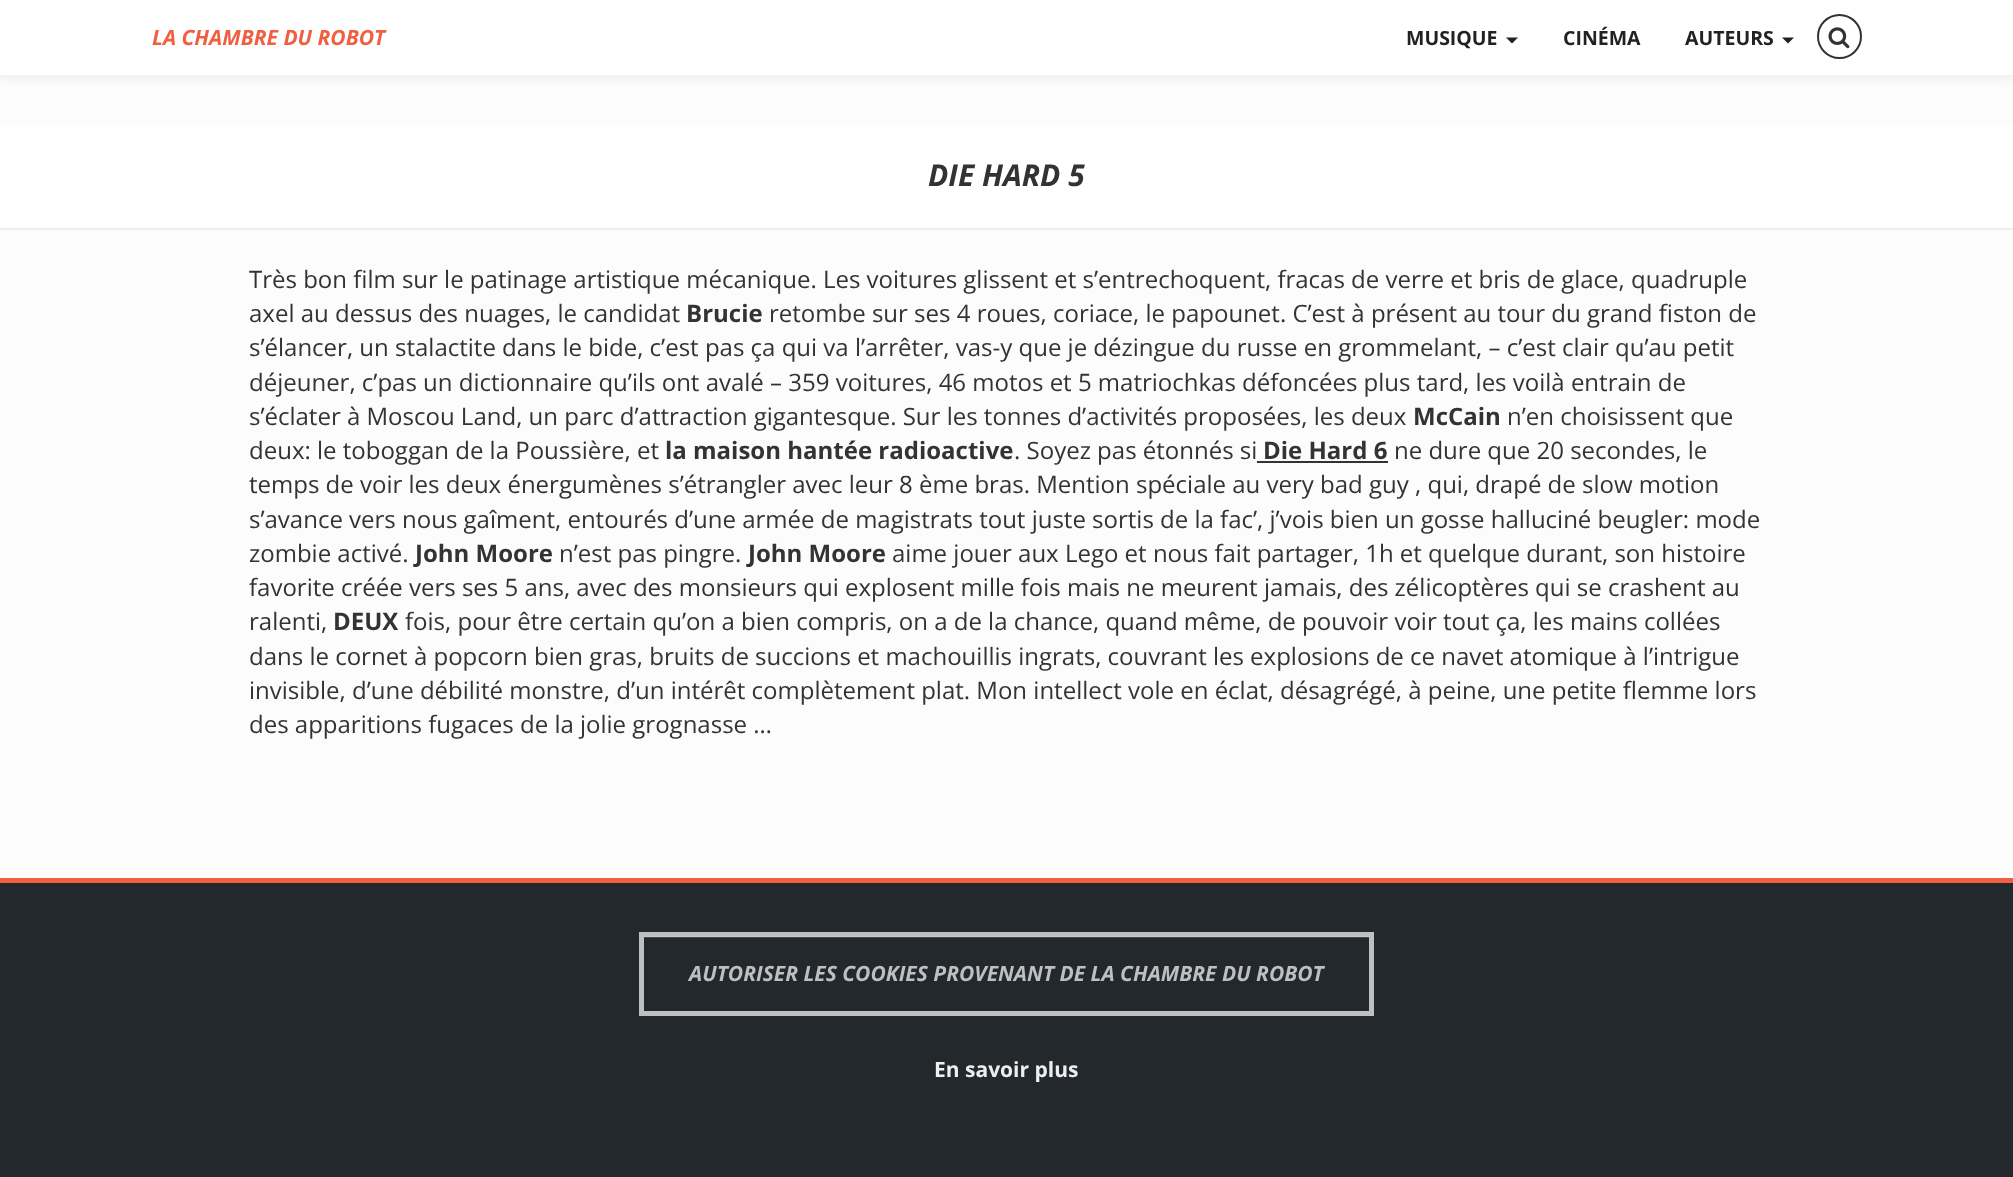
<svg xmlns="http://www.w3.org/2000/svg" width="2013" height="1177">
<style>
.a{font:italic bold 21px Open Sans;fill:#f05f40}
.b{font:bold 19.5px Open Sans;fill:#222}
.c{font:italic bold 30px Open Sans;fill:#333}
.d{font:24px Open Sans;fill:#333}
.e{font:bold 24px Open Sans;fill:#333}
.f{font:italic bold 21px Open Sans;fill:#bdbfc0}
.g{font:bold 21px Open Sans;fill:#eee}
</style>
<rect width="100%" height="100%" fill="#fcfcfc"/>
<path fill="#00000012" filter="blur(4px)" d="M0 2h2013v76H0z"/>
<path fill="#fff" d="M0 0h2013v75H0z"/>
<path fill="#f4f4f4" d="M0 75h2013v2H0z"/>
<path fill="#222" d="M1506 37.5h12l-6 6z"/>
<path fill="#222" d="M1782 37.5h12l-6 6z"/>
<circle fill="none" stroke="#333" stroke-width="2" cx="1839.5" cy="36.5" r="21.5"/>
<image href="1.png" x="1828" y="27" width="22" height="22"/>
<path fill="#fff" d="M0 125h2013v103H0z"/>
<path fill="#eee" d="M0 228h2013v2H0z"/>
<path fill="#333" d="M1257 461h131v2H1257z"/>
<path fill="#23282d" d="M0 883h2013v294H0z"/>
<path fill="#f05f40" d="M0 878h2013v5H0z"/>
<path fill="#44484d" d="M644 936h726v2H644z"/>
<path fill="none" stroke="#ffffffb3" stroke-width="5" d="M641.5 934.5h730v79H641.5z"/>
<text class="a" x="152" y="45">LA CHAMBRE DU ROBOT</text>
<text class="b" x="1406" y="45">MUSIQUE</text>
<text class="b" x="1563" y="45">CINÉMA</text>
<text class="b" x="1685" y="45">AUTEURS</text>
<text class="c" x="928" y="186">DIE HARD 5</text>
<text class="d" x="249" y="288">Très bon film sur le patinage artistique mécanique. Les voitures glissent et s’entrechoquent, fracas de verre et bris de glace, quadruple</text>
<text class="d" x="249" y="322">axel au dessus des nuages, le candidat</text>
<text class="e" x="686" y="322">Brucie</text>
<text class="d" x="769" y="322">retombe sur ses 4 roues, coriace, le papounet. C’est à présent au tour du grand fiston de</text>
<text class="d" x="249" y="356">s’élancer, un stalactite dans le bide, c’est pas ça qui va l’arrêter, vas-y que je dézingue du russe en grommelant, – c’est clair qu’au petit</text>
<text class="d" x="249" y="391">déjeuner, c’pas un dictionnaire qu’ils ont avalé – 359 voitures, 46 motos et 5 matriochkas défoncées plus tard, les voilà entrain de</text>
<text class="d" x="249" y="425">s’éclater à Moscou Land, un parc d’attraction gigantesque. Sur les tonnes d’activités proposées, les deux</text>
<text class="e" x="1413" y="425">McCain</text>
<text class="d" x="1507" y="425">n’en choisissent que</text>
<text class="d" x="249" y="459">deux: le toboggan de la Poussière, et</text>
<text class="e" x="665" y="459">la maison hantée radioactive</text>
<text class="d" x="1014" y="459">. Soyez pas étonnés si</text>
<text class="e" x="1263" y="459">Die Hard 6</text>
<text class="d" x="1394" y="459">ne dure que 20 secondes, le</text>
<text class="d" x="249" y="493">temps de voir les deux énergumènes s’étrangler avec leur 8 ème bras. Mention spéciale au very bad guy , qui, drapé de slow motion</text>
<text class="d" x="249" y="528">s’avance vers nous gaîment, entourés d’une armée de magistrats tout juste sortis de la fac’, j’vois bien un gosse halluciné beugler: mode</text>
<text class="d" x="249" y="562">zombie activé.</text>
<text class="e" x="415" y="562">John Moore</text>
<text class="d" x="559" y="562">n’est pas pingre.</text>
<text class="e" x="748" y="562">John Moore</text>
<text class="d" x="892" y="562">aime jouer aux Lego et nous fait partager, 1h et quelque durant, son histoire</text>
<text class="d" x="249" y="596">favorite créée vers ses 5 ans, avec des monsieurs qui explosent mille fois mais ne meurent jamais, des zélicoptères qui se crashent au</text>
<text class="d" x="249" y="630">ralenti,</text>
<text class="e" x="333" y="630">DEUX</text>
<text class="d" x="405" y="630">fois, pour être certain qu’on a bien compris, on a de la chance, quand même, de pouvoir voir tout ça, les mains collées</text>
<text class="d" x="249" y="665">dans le cornet à popcorn bien gras, bruits de succions et machouillis ingrats, couvrant les explosions de ce navet atomique à l’intrigue</text>
<text class="d" x="249" y="699">invisible, d’une débilité monstre, d’un intérêt complètement plat. Mon intellect vole en éclat, désagrégé, à peine, une petite flemme lors</text>
<text class="d" x="249" y="733">des apparitions fugaces de la jolie grognasse …</text>
<text class="f" x="689" y="981">AUTORISER LES COOKIES PROVENANT DE LA CHAMBRE DU ROBOT</text>
<text class="g" x="934" y="1077">En savoir plus</text>
</svg>
